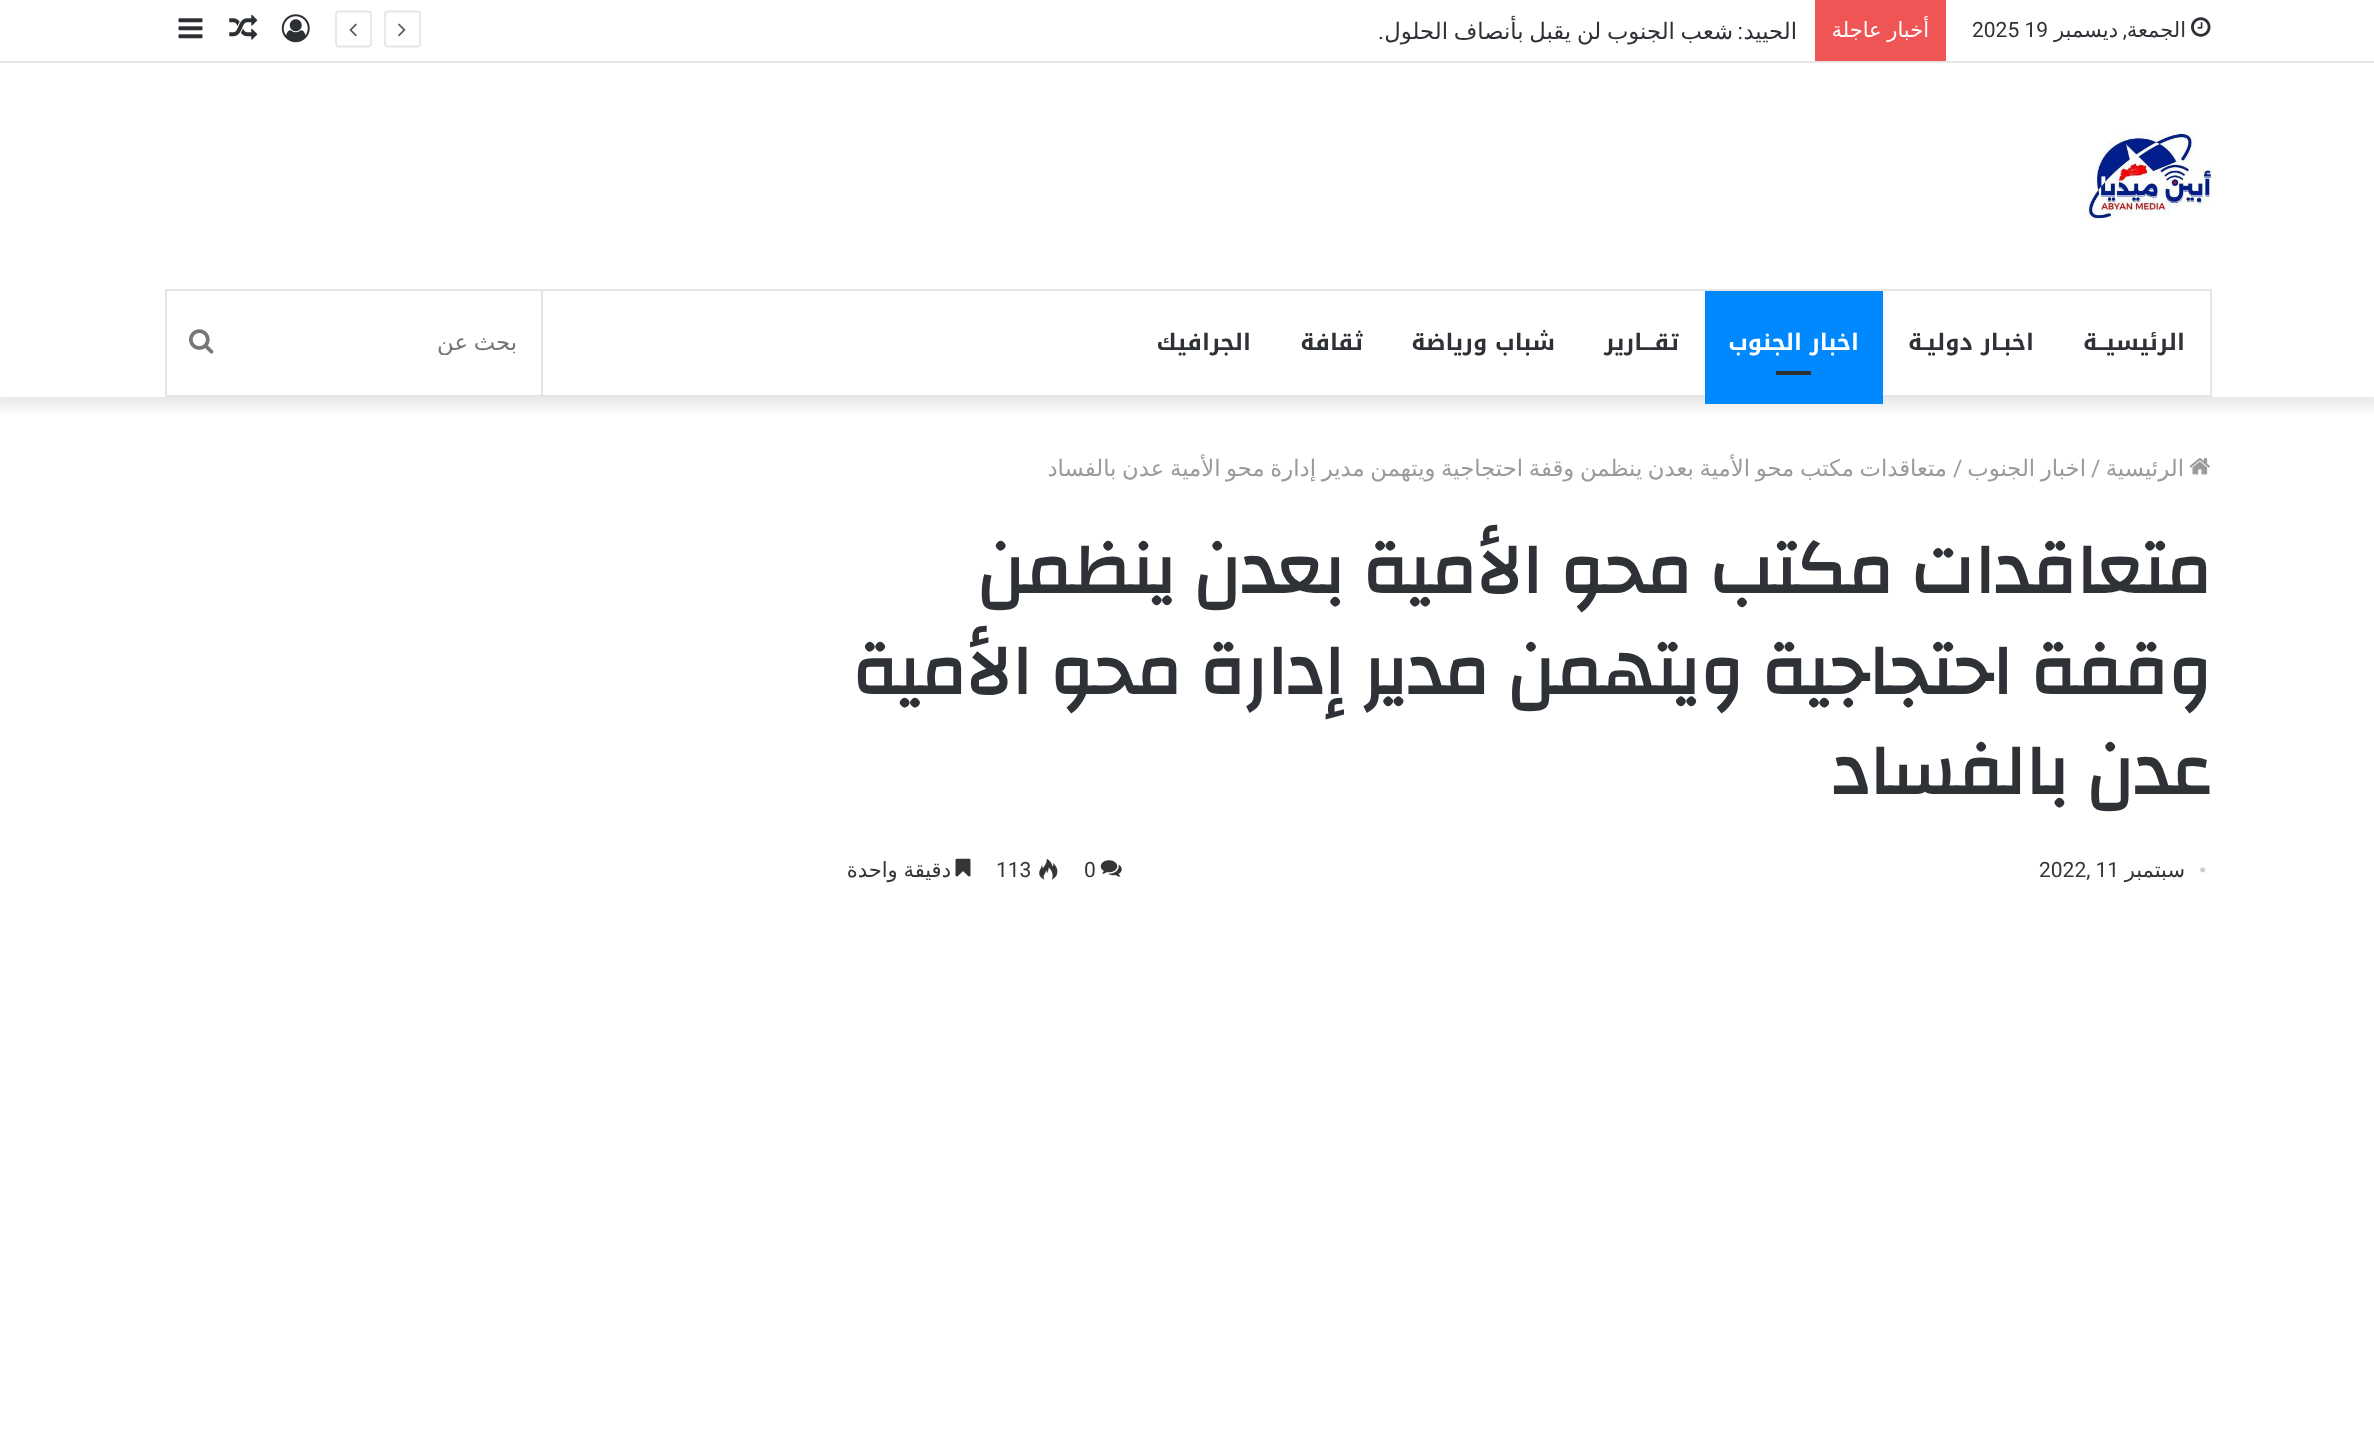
<svg xmlns="http://www.w3.org/2000/svg" width="2374" height="1445">
<style>
.a{font:21px DejaVu Sans;direction:rtl;fill:#2e3136}
.b{font:21px Roboto;direction:rtl;fill:#2e3136}
.c{font:21px Roboto;fill:#2e3136}
.d{font:21px DejaVu Sans;direction:rtl;fill:#fff}
.e{font:22.75px DejaVu Sans;direction:rtl;fill:#2e3136}
.f{font:22.75px Roboto;direction:rtl;fill:#2e3136}
.g{font:bold 22.75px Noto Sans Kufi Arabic;direction:rtl;fill:#2e3136}
.h{font:bold 22.75px Noto Sans Kufi Arabic;direction:rtl;fill:#fff}
.i{font:22.75px DejaVu Sans;direction:rtl;fill:#757575}
.j{font:22.75px DejaVu Sans;direction:rtl;fill:#9a9a9a}
.k{font:22.75px Roboto;fill:#9a9a9a}
.l{font:bold 71.75px Changa;direction:rtl;fill:#2e3136}
.m{font:21px Liberation Serif;fill:#cdcdcd}
.n{font:21px DejaVu Sans;direction:rtl;fill:#353535}
.o{font:21px Roboto;fill:#353535}
</style>
<defs>
<clipPath id="clip1"><path d="M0 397h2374v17H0z"/></clipPath>
<clipPath id="clip2"><path d="M228 329h290v26H228z"/></clipPath>
</defs>
<rect width="100%" height="100%" fill="#fff"/>
<g clip-path="url(#clip1)">
<path fill="#0000001a" filter="blur(9px)" d="M-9 -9h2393v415H-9z"/>
</g>
<path fill="#e6e6e6" d="M0 61h2374v2H0z"/>
<image href="1.png" x="2191" y="17" width="20" height="20"/>
<path fill="#f05555" d="M1815 0h131v61H1815z"/>
<path fill="none" stroke="#e6e6e6" stroke-width="1.8" d="M417.5 46.5h-30c-1.5 0-2.5-1.5-2.5-2.5v-30c0-1.5 1-2.5 2.5-2.5h30c1.5 0 2.5 1 2.5 2.5v30c0 1-1 2.5-2.5 2.5z"/>
<image href="2.png" x="398" y="23" width="8" height="14"/>
<path fill="none" stroke="#e6e6e6" stroke-width="1.8" d="M368.5 46.5h-30c-1.5 0-2.5-1.5-2.5-2.5v-30c0-1.5 1-2.5 2.5-2.5h30c1.5 0 2.5 1 2.5 2.5v30c0 1-1 2.5-2.5 2.5z"/>
<image href="3.png" x="349" y="23" width="8" height="14"/>
<image href="4.png" x="281" y="14" width="29" height="29"/>
<image href="5.png" x="229" y="14" width="29" height="26"/>
<image href="6.png" x="178" y="18" width="25" height="21"/>
<image href="7.png" x="2087" y="133" width="125" height="86"/>
<path fill="none" stroke="#e6e6e6" stroke-width="2" d="M166 290h2045v106H166z"/>
<path fill="#08f" d="M1705 291h178v113H1705z"/>
<path fill="#2c2f34" d="M1776 371h35v4H1776z"/>
<path fill="#0000001a" d="M541 291h2v105H541z"/>
<image href="8.png" x="189" y="329" width="25" height="25"/>
<image href="9.png" x="2189" y="458" width="21" height="17"/>
<image href="10.png" x="1100" y="860" width="22" height="17"/>
<image href="11.png" x="1039" y="858" width="19" height="22"/>
<image href="12.png" x="955" y="858" width="16" height="19"/>
<text class="a" x="2186" y="37">الجمعة</text>
<text class="b" x="2127" y="37">,</text>
<text class="a" x="2118" y="37">ديسمبر</text>
<text class="c" x="1972" y="37">2025 19</text>
<text class="d" x="1929" y="37" word-spacing="-1">أخبار عاجلة</text>
<text class="e" x="1797" y="39">الحييد</text>
<text class="f" x="1743" y="39">:</text>
<text class="e" x="1733" y="39" word-spacing="-1.5">شعب الجنوب لن يقبل بأنصاف الحلول</text>
<text class="f" x="1384" y="39">.</text>
<text class="g" x="2185" y="350">الرئيسيــة</text>
<text class="g" x="2034" y="350">اخبـار دوليـة</text>
<text class="h" x="1859" y="350">اخبار الجنوب</text>
<text class="g" x="1679" y="350">تقـــارير</text>
<text class="g" x="1555" y="350">شباب ورياضة</text>
<text class="g" x="1363" y="350">ثقافة</text>
<text class="g" x="1251" y="350">الجرافيك</text>
<g clip-path="url(#clip2)">
<text class="i" x="517" y="350" word-spacing="-1.6">بحث عن</text>
</g>
<text class="j" x="2184" y="476">الرئيسية</text>
<text class="k" x="2091" y="476">/</text>
<text class="j" x="2086" y="476" word-spacing="-1.6">اخبار الجنوب</text>
<text class="k" x="1953" y="476">/</text>
<text class="j" x="1947" y="476" word-spacing="-1.6">متعاقدات مكتب محو الأمية بعدن ينظمن وقفة احتجاجية ويتهمن مدير إدارة محو الأمية عدن بالفساد</text>
<text class="l" x="2211" y="593">متعاقدات مكتب محو الأمية بعدن ينظمن</text>
<text class="l" x="2211" y="694">وقفة احتجاجية ويتهمن مدير إدارة محو الأمية</text>
<text class="l" x="2211" y="794">عدن بالفساد</text>
<text class="m" x="2199" y="877">•</text>
<text class="n" x="2185" y="877">سبتمبر</text>
<text class="o" x="2039" y="877">2022, 11</text>
<text class="o" x="1084" y="877">0</text>
<text class="o" x="996" y="877">113</text>
<text class="n" x="951" y="877" word-spacing="-1">دقيقة واحدة</text>
</svg>
